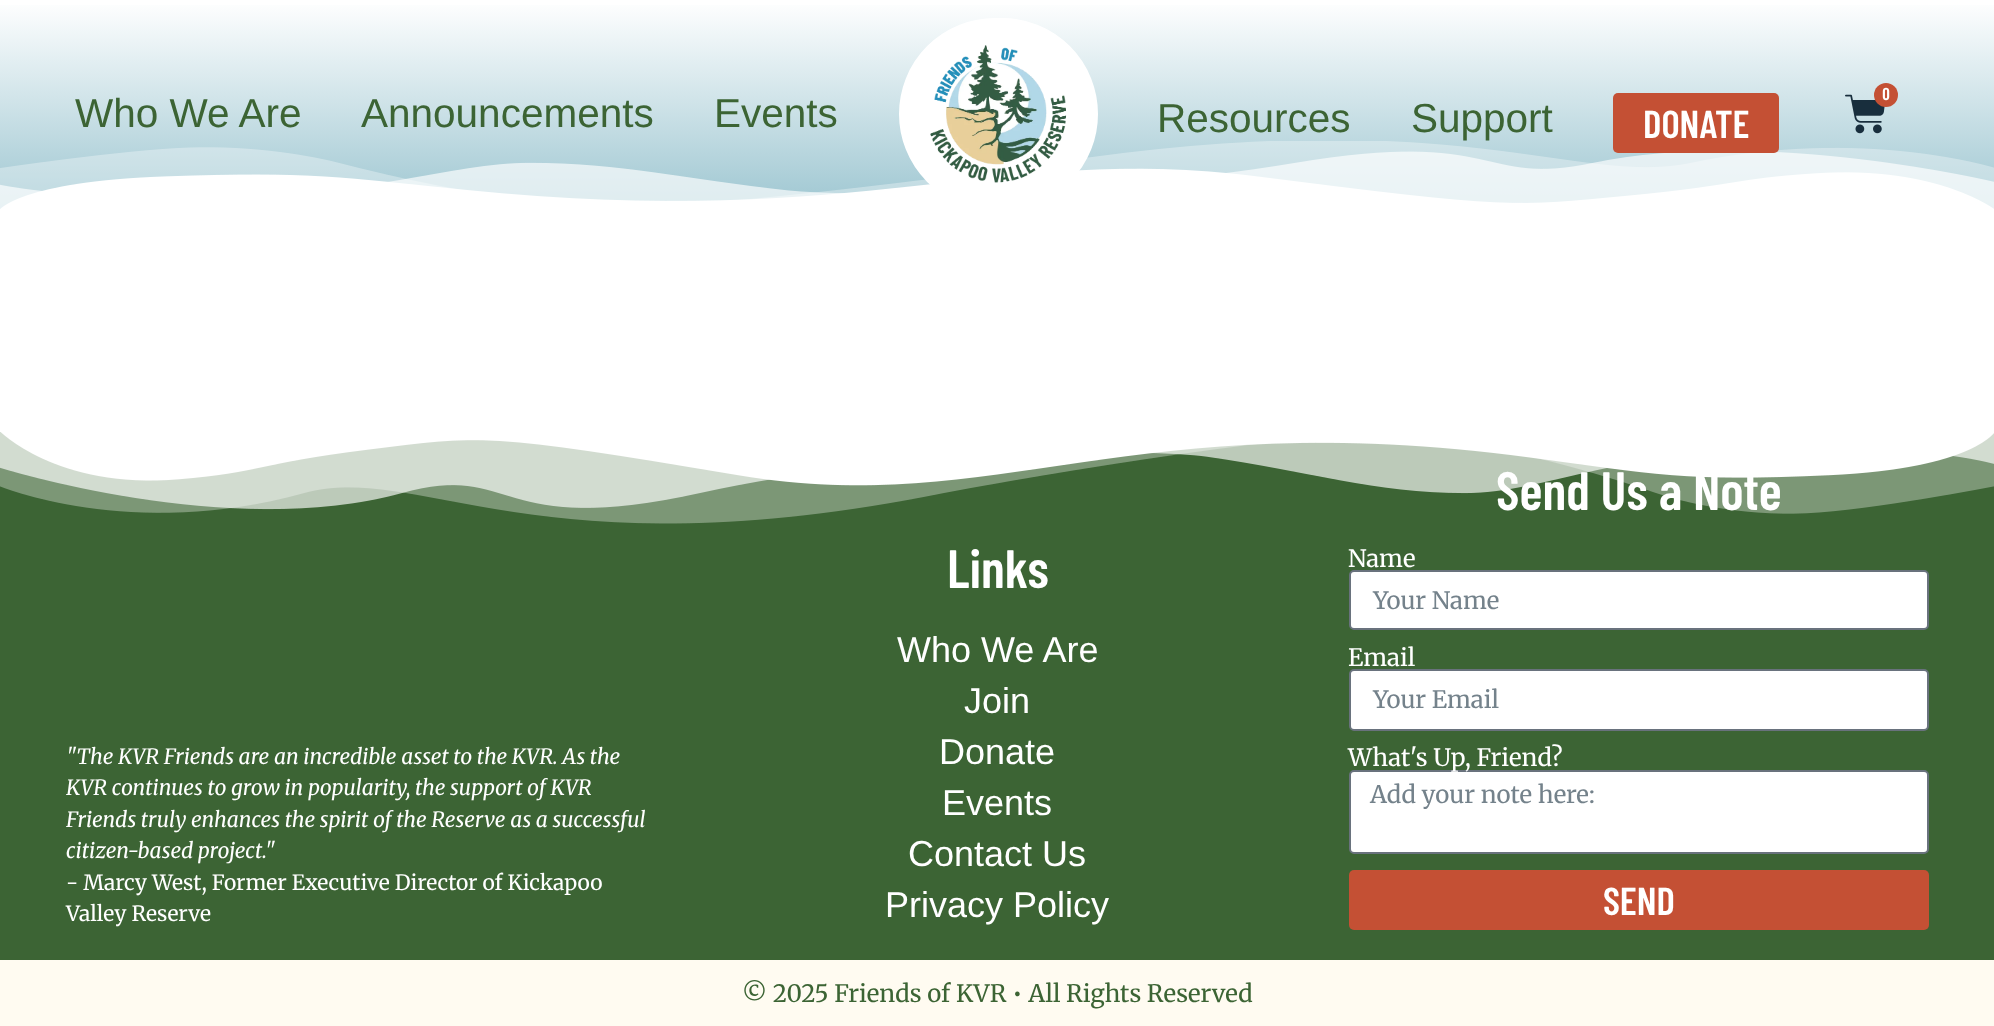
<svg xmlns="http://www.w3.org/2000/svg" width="1994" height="1026">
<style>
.a{font:40.5px Liberation Sans;fill:#3c6434}
.b{font:500 15px Oswald;fill:#fff}
.c{font:600 39px Barlow Condensed;fill:#fff}
.d{font:italic 21px Merriweather;fill:#fff}
.e{font:21px Merriweather;fill:#fff}
.f{font:600 54px Barlow Condensed;fill:#fff}
.g{font:36px Liberation Sans;fill:#fff}
.h{font:24px Merriweather;fill:#fff}
.i{font:24px Merriweather;fill:#74828b}
.j{font:24px Merriweather;fill:#3c6434}
</style>
<defs>
<linearGradient id="g1" gradientUnits="userSpaceOnUse" x1="998" y1="0" x2="998" y2="210"><stop offset="0" stop-color="#fff"/><stop offset="1" stop-color="#9dc6d1"/></linearGradient>
</defs>
<rect width="100%" height="100%" fill="#fff"/>
<path fill="url(#g1)" d="M0 5h1994v204H0z"/>
<image href="3.png" x="0" y="141" width="1994" height="69"/>
<rect fill="#fff" stroke="#fff" stroke-width="23" x="910.5" y="29.5" width="176" height="169" rx="84.5"/>
<image href="1.png" x="930" y="45" width="137" height="138"/>
<image href="2.png" x="1845" y="94" width="40" height="40"/>
<circle fill="#c45034" cx="1886" cy="95" r="12"/>
<rect fill="#c45034" x="1613" y="93" width="166" height="60" rx="5"/>
<path fill="#3c6434" d="M0 432h1994v528H0z"/>
<image href="4.png" x="0" y="432" width="1994" height="92"/>
<rect fill="#fff" stroke="#69727d" stroke-width="2" x="1350" y="571" width="578" height="58" rx="4"/>
<rect fill="#fff" stroke="#69727d" stroke-width="2" x="1350" y="670" width="578" height="60" rx="4"/>
<rect fill="#fff" stroke="#69727d" stroke-width="2" x="1350" y="771" width="578" height="82" rx="4"/>
<rect fill="#c45034" x="1349" y="870" width="580" height="60" rx="5"/>
<path fill="#fffbf1" d="M0 960h1994v66H0z"/>
<text class="a" x="75" y="127">Who We Are</text>
<text class="a" x="361" y="127">Announcements</text>
<text class="a" x="714" y="127">Events</text>
<text class="b" x="1882" y="100">0</text>
<text class="a" x="1157" y="132">Resources</text>
<text class="a" x="1411" y="132">Support</text>
<text class="c" x="1643" y="138">DONATE</text>
<text class="d" x="66" y="764">"The KVR Friends are an incredible asset to the KVR. As the</text>
<text class="d" x="66" y="795">KVR continues to grow in popularity, the support of KVR</text>
<text class="d" x="66" y="827">Friends truly enhances the spirit of the Reserve as a successful</text>
<text class="d" x="66" y="858">citizen-based project."</text>
<text class="e" x="66" y="890">- Marcy West, Former Executive Director of Kickapoo</text>
<text class="e" x="66" y="921">Valley Reserve</text>
<text class="f" x="947" y="588">Links</text>
<text class="g" x="897" y="662">Who We Are</text>
<text class="g" x="964" y="713">Join</text>
<text class="g" x="939" y="764">Donate</text>
<text class="g" x="942" y="815">Events</text>
<text class="g" x="908" y="866">Contact Us</text>
<text class="g" x="885" y="917">Privacy Policy</text>
<text class="f" x="1496" y="510">Send Us a Note</text>
<text class="h" x="1348" y="567">Name</text>
<text class="i" x="1373" y="609">Your Name</text>
<text class="h" x="1348" y="666">Email</text>
<text class="i" x="1373" y="708">Your Email</text>
<text class="h" x="1348" y="766">What's Up, Friend?</text>
<text class="i" x="1370" y="803">Add your note here:</text>
<text class="c" x="1603" y="915">SEND</text>
<text class="j" x="742" y="1002">© 2025 Friends of KVR • All Rights Reserved</text>
</svg>
